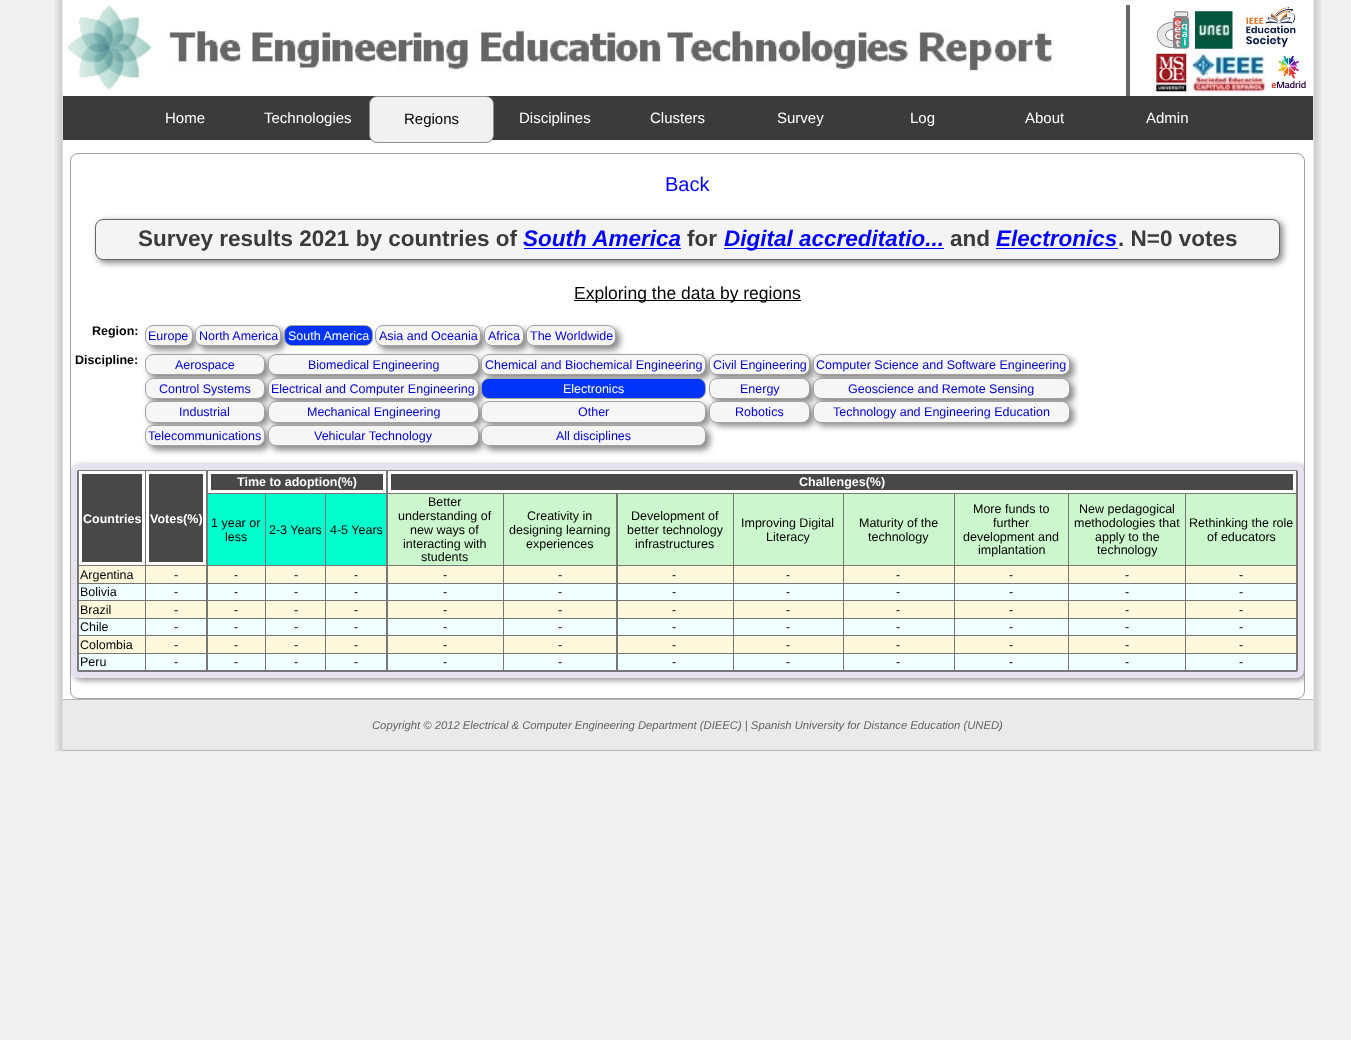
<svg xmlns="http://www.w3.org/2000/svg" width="1351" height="1040">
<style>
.a{font:15px Liberation Sans;fill:#fff}
.b{font:15px Liberation Sans;fill:#000}
.c{font:20px Liberation Sans;fill:#00f}
.d{font:bold 22.5px Liberation Sans;fill:#3b3b3b}
.e{font:italic bold 22.5px Liberation Sans;fill:#00f}
.f{font:17.5px Liberation Sans;fill:#000}
.g{font:bold 12.5px Liberation Sans;fill:#000}
.h{font:12.5px Liberation Sans;fill:#00c}
.i{font:12.5px Liberation Sans;fill:#fff}
.j{font:bold 12.5px Liberation Sans;fill:#fff}
.k{font:12.5px Liberation Sans;fill:#000}
.l{font:italic 11.25px Liberation Sans;fill:#636363}
</style>
<defs>
<clipPath id="clip1"><path d="M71 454h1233v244H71z"/></clipPath>
</defs>
<rect width="100%" height="100%" fill="#f1f1f1"/>
<image href="1.png" x="54" y="0" width="1268" height="752"/>
<path fill="#fff" d="M63 0h1250v699H63z"/>
<image href="2.png" x="62" y="0" width="991" height="93"/>
<path fill="#686868" d="M1126 5h4v91H1126z"/>
<image href="3.png" x="1156" y="11" width="34" height="38"/>
<image href="4.png" x="1195" y="11" width="38" height="38"/>
<image href="5.png" x="1244" y="5" width="52" height="43"/>
<image href="6.png" x="1156" y="53" width="31" height="39"/>
<image href="7.png" x="1192" y="53" width="73" height="39"/>
<image href="8.png" x="1271" y="55" width="35" height="34"/>
<path fill="#3b3b3b" d="M63 96h1250v44H63z"/>
<rect fill="#f1f1f1" stroke="#8d8d8d" x="369.5" y="96.5" width="124" height="46" rx="7.5"/>
<rect fill="none" stroke="#a0a0a0" x="70.5" y="153.5" width="1234" height="545" rx="7.5"/>
<rect fill="#888" filter="blur(3px)" x="98" y="221" width="1185" height="42" rx="8"/>
<rect fill="#f4f4f4" stroke="#666" x="95.5" y="219.5" width="1184" height="40" rx="7.5"/>
<path fill="#00f" d="M524 248h157v1H524z"/>
<path fill="#00f" d="M724 248h220v1H724z"/>
<path fill="#00f" d="M996 248h122v1H996z"/>
<path fill="#000" d="M574 300h227v1H574z"/>
<rect fill="#888" filter="blur(3px)" x="149" y="329" width="47" height="21" rx="8"/>
<rect fill="#f6f6f6" stroke="#a2a2a2" x="145.5" y="325.5" width="47" height="20" rx="7.5"/>
<rect fill="#888" filter="blur(3px)" x="199" y="329" width="86" height="21" rx="8"/>
<rect fill="#f6f6f6" stroke="#a2a2a2" x="195.5" y="325.5" width="85" height="20" rx="7.5"/>
<rect fill="#0035f9" stroke="#a2a2a2" x="284.5" y="325.5" width="88" height="20" rx="7.5"/>
<rect fill="#888" filter="blur(3px)" x="379" y="329" width="106" height="21" rx="8"/>
<rect fill="#f6f6f6" stroke="#a2a2a2" x="375.5" y="325.5" width="105" height="20" rx="7.5"/>
<rect fill="#888" filter="blur(3px)" x="488" y="329" width="40" height="21" rx="8"/>
<rect fill="#f6f6f6" stroke="#a2a2a2" x="484.5" y="325.5" width="39" height="20" rx="7.5"/>
<rect fill="#888" filter="blur(3px)" x="530" y="329" width="90" height="21" rx="8"/>
<rect fill="#f6f6f6" stroke="#a2a2a2" x="526.5" y="325.5" width="89" height="20" rx="7.5"/>
<rect fill="#888" filter="blur(3px)" x="149" y="358" width="120" height="21" rx="8"/>
<rect fill="#f6f6f6" stroke="#a2a2a2" x="145.5" y="354.5" width="119" height="20" rx="7.5"/>
<rect fill="#888" filter="blur(3px)" x="271" y="358" width="212" height="21" rx="8"/>
<rect fill="#f6f6f6" stroke="#a2a2a2" x="268.5" y="354.5" width="210" height="20" rx="7.5"/>
<rect fill="#888" filter="blur(3px)" x="485" y="358" width="225" height="21" rx="8"/>
<rect fill="#f6f6f6" stroke="#a2a2a2" x="481.5" y="354.5" width="224" height="20" rx="7.5"/>
<rect fill="#888" filter="blur(3px)" x="713" y="358" width="101" height="21" rx="8"/>
<rect fill="#f6f6f6" stroke="#a2a2a2" x="709.5" y="354.5" width="100" height="20" rx="7.5"/>
<rect fill="#888" filter="blur(3px)" x="816" y="358" width="258" height="21" rx="8"/>
<rect fill="#f6f6f6" stroke="#a2a2a2" x="813.5" y="354.5" width="256" height="20" rx="7.5"/>
<rect fill="#888" filter="blur(3px)" x="149" y="381" width="120" height="22" rx="8"/>
<rect fill="#f6f6f6" stroke="#a2a2a2" x="145.5" y="378.5" width="119" height="20" rx="7.5"/>
<rect fill="#888" filter="blur(3px)" x="271" y="381" width="212" height="22" rx="8"/>
<rect fill="#f6f6f6" stroke="#a2a2a2" x="268.5" y="378.5" width="210" height="20" rx="7.5"/>
<rect fill="#0035f9" stroke="#a2a2a2" x="481.5" y="378.5" width="224" height="20" rx="7.5"/>
<rect fill="#888" filter="blur(3px)" x="713" y="381" width="101" height="22" rx="8"/>
<rect fill="#f6f6f6" stroke="#a2a2a2" x="709.5" y="378.5" width="100" height="20" rx="7.5"/>
<rect fill="#888" filter="blur(3px)" x="816" y="381" width="258" height="22" rx="8"/>
<rect fill="#f6f6f6" stroke="#a2a2a2" x="813.5" y="378.5" width="256" height="20" rx="7.5"/>
<rect fill="#888" filter="blur(3px)" x="149" y="405" width="120" height="21" rx="8"/>
<rect fill="#f6f6f6" stroke="#a2a2a2" x="145.5" y="401.5" width="119" height="21" rx="7.5"/>
<rect fill="#888" filter="blur(3px)" x="271" y="405" width="212" height="21" rx="8"/>
<rect fill="#f6f6f6" stroke="#a2a2a2" x="268.5" y="401.5" width="210" height="21" rx="7.5"/>
<rect fill="#888" filter="blur(3px)" x="485" y="405" width="225" height="21" rx="8"/>
<rect fill="#f6f6f6" stroke="#a2a2a2" x="481.5" y="401.5" width="224" height="21" rx="7.5"/>
<rect fill="#888" filter="blur(3px)" x="713" y="405" width="101" height="21" rx="8"/>
<rect fill="#f6f6f6" stroke="#a2a2a2" x="709.5" y="401.5" width="100" height="21" rx="7.5"/>
<rect fill="#888" filter="blur(3px)" x="816" y="405" width="258" height="21" rx="8"/>
<rect fill="#f6f6f6" stroke="#a2a2a2" x="813.5" y="401.5" width="256" height="21" rx="7.5"/>
<rect fill="#888" filter="blur(3px)" x="149" y="429" width="120" height="21" rx="8"/>
<rect fill="#f6f6f6" stroke="#a2a2a2" x="145.5" y="425.5" width="119" height="20" rx="7.5"/>
<rect fill="#888" filter="blur(3px)" x="271" y="429" width="212" height="21" rx="8"/>
<rect fill="#f6f6f6" stroke="#a2a2a2" x="268.5" y="425.5" width="210" height="20" rx="7.5"/>
<rect fill="#888" filter="blur(3px)" x="485" y="429" width="225" height="21" rx="8"/>
<rect fill="#f6f6f6" stroke="#a2a2a2" x="481.5" y="425.5" width="224" height="20" rx="7.5"/>
<g clip-path="url(#clip1)">
<rect fill="#888" filter="blur(3px)" x="74" y="466" width="1232" height="214" rx="8"/>
</g>
<rect fill="#777" stroke="#e6e2ef" stroke-width="6" x="74" y="467" width="1227" height="208" rx="5"/>
<path fill="#484848" stroke="#fff" stroke-width="3" d="M209.5 472.5h175v19H209.5z"/>
<path fill="#484848" stroke="#fff" stroke-width="3" d="M389.5 472.5h905v19H389.5z"/>
<path fill="#484848" stroke="#fff" stroke-width="3" d="M80.5 472.5h63v91H80.5z"/>
<path fill="#484848" stroke="#fff" stroke-width="3" d="M147.5 472.5h57v91H147.5z"/>
<path fill="#0fc" d="M208 494h57v71H208z"/>
<path fill="#0fc" d="M266 494h59v71H266z"/>
<path fill="#0fc" d="M326 494h60v71H326z"/>
<path fill="#ccf7cc" d="M388 494h115v71H388z"/>
<path fill="#ccf7cc" d="M504 494h112v71H504z"/>
<path fill="#ccf7cc" d="M618 494h115v71H618z"/>
<path fill="#ccf7cc" d="M734 494h109v71H734z"/>
<path fill="#ccf7cc" d="M844 494h110v71H844z"/>
<path fill="#ccf7cc" d="M955 494h113v71H955z"/>
<path fill="#ccf7cc" d="M1069 494h116v71H1069z"/>
<path fill="#ccf7cc" d="M1186 494h110v71H1186z"/>
<path fill="#fff8dc" d="M79 566h66v17H79z"/>
<path fill="#fff8dc" d="M146 566h60v17H146z"/>
<path fill="#fff8dc" d="M208 566h57v17H208z"/>
<path fill="#fff8dc" d="M266 566h59v17H266z"/>
<path fill="#fff8dc" d="M326 566h60v17H326z"/>
<path fill="#fff8dc" d="M388 566h115v17H388z"/>
<path fill="#fff8dc" d="M504 566h112v17H504z"/>
<path fill="#fff8dc" d="M618 566h115v17H618z"/>
<path fill="#fff8dc" d="M734 566h109v17H734z"/>
<path fill="#fff8dc" d="M844 566h110v17H844z"/>
<path fill="#fff8dc" d="M955 566h113v17H955z"/>
<path fill="#fff8dc" d="M1069 566h116v17H1069z"/>
<path fill="#fff8dc" d="M1186 566h110v17H1186z"/>
<path fill="#f0ffff" d="M79 584h66v16H79z"/>
<path fill="#f0ffff" d="M146 584h60v16H146z"/>
<path fill="#f0ffff" d="M208 584h57v16H208z"/>
<path fill="#f0ffff" d="M266 584h59v16H266z"/>
<path fill="#f0ffff" d="M326 584h60v16H326z"/>
<path fill="#f0ffff" d="M388 584h115v16H388z"/>
<path fill="#f0ffff" d="M504 584h112v16H504z"/>
<path fill="#f0ffff" d="M618 584h115v16H618z"/>
<path fill="#f0ffff" d="M734 584h109v16H734z"/>
<path fill="#f0ffff" d="M844 584h110v16H844z"/>
<path fill="#f0ffff" d="M955 584h113v16H955z"/>
<path fill="#f0ffff" d="M1069 584h116v16H1069z"/>
<path fill="#f0ffff" d="M1186 584h110v16H1186z"/>
<path fill="#fff8dc" d="M79 601h66v17H79z"/>
<path fill="#fff8dc" d="M146 601h60v17H146z"/>
<path fill="#fff8dc" d="M208 601h57v17H208z"/>
<path fill="#fff8dc" d="M266 601h59v17H266z"/>
<path fill="#fff8dc" d="M326 601h60v17H326z"/>
<path fill="#fff8dc" d="M388 601h115v17H388z"/>
<path fill="#fff8dc" d="M504 601h112v17H504z"/>
<path fill="#fff8dc" d="M618 601h115v17H618z"/>
<path fill="#fff8dc" d="M734 601h109v17H734z"/>
<path fill="#fff8dc" d="M844 601h110v17H844z"/>
<path fill="#fff8dc" d="M955 601h113v17H955z"/>
<path fill="#fff8dc" d="M1069 601h116v17H1069z"/>
<path fill="#fff8dc" d="M1186 601h110v17H1186z"/>
<path fill="#f0ffff" d="M79 619h66v16H79z"/>
<path fill="#f0ffff" d="M146 619h60v16H146z"/>
<path fill="#f0ffff" d="M208 619h57v16H208z"/>
<path fill="#f0ffff" d="M266 619h59v16H266z"/>
<path fill="#f0ffff" d="M326 619h60v16H326z"/>
<path fill="#f0ffff" d="M388 619h115v16H388z"/>
<path fill="#f0ffff" d="M504 619h112v16H504z"/>
<path fill="#f0ffff" d="M618 619h115v16H618z"/>
<path fill="#f0ffff" d="M734 619h109v16H734z"/>
<path fill="#f0ffff" d="M844 619h110v16H844z"/>
<path fill="#f0ffff" d="M955 619h113v16H955z"/>
<path fill="#f0ffff" d="M1069 619h116v16H1069z"/>
<path fill="#f0ffff" d="M1186 619h110v16H1186z"/>
<path fill="#fff8dc" d="M79 636h66v17H79z"/>
<path fill="#fff8dc" d="M146 636h60v17H146z"/>
<path fill="#fff8dc" d="M208 636h57v17H208z"/>
<path fill="#fff8dc" d="M266 636h59v17H266z"/>
<path fill="#fff8dc" d="M326 636h60v17H326z"/>
<path fill="#fff8dc" d="M388 636h115v17H388z"/>
<path fill="#fff8dc" d="M504 636h112v17H504z"/>
<path fill="#fff8dc" d="M618 636h115v17H618z"/>
<path fill="#fff8dc" d="M734 636h109v17H734z"/>
<path fill="#fff8dc" d="M844 636h110v17H844z"/>
<path fill="#fff8dc" d="M955 636h113v17H955z"/>
<path fill="#fff8dc" d="M1069 636h116v17H1069z"/>
<path fill="#fff8dc" d="M1186 636h110v17H1186z"/>
<path fill="#f0ffff" d="M79 654h66v16H79z"/>
<path fill="#f0ffff" d="M146 654h60v16H146z"/>
<path fill="#f0ffff" d="M208 654h57v16H208z"/>
<path fill="#f0ffff" d="M266 654h59v16H266z"/>
<path fill="#f0ffff" d="M326 654h60v16H326z"/>
<path fill="#f0ffff" d="M388 654h115v16H388z"/>
<path fill="#f0ffff" d="M504 654h112v16H504z"/>
<path fill="#f0ffff" d="M618 654h115v16H618z"/>
<path fill="#f0ffff" d="M734 654h109v16H734z"/>
<path fill="#f0ffff" d="M844 654h110v16H844z"/>
<path fill="#f0ffff" d="M955 654h113v16H955z"/>
<path fill="#f0ffff" d="M1069 654h116v16H1069z"/>
<path fill="#f0ffff" d="M1186 654h110v16H1186z"/>
<path fill="#eaeaea" d="M64 700h1249v50H64z"/>
<path fill="#b5b5b5" d="M63 699h1250v1H63z"/>
<path fill="#b5b5b5" d="M63 750h1250v1H63z"/>
<text class="a" x="165" y="123">Home</text>
<text class="a" x="264" y="123">Technologies</text>
<text class="b" x="404" y="124">Regions</text>
<text class="a" x="519" y="123">Disciplines</text>
<text class="a" x="650" y="123">Clusters</text>
<text class="a" x="777" y="123">Survey</text>
<text class="a" x="910" y="123">Log</text>
<text class="a" x="1025" y="123">About</text>
<text class="a" x="1146" y="123">Admin</text>
<text class="c" x="665" y="191">Back</text>
<text class="d" x="138" y="246">Survey results 2021 by countries of</text>
<text class="e" x="523" y="246">South America</text>
<text class="d" x="687" y="246">for</text>
<text class="e" x="724" y="246">Digital accreditatio...</text>
<text class="d" x="950" y="246">and</text>
<text class="e" x="996" y="246">Electronics</text>
<text class="d" x="1118" y="246">. N=0 votes</text>
<text class="f" x="574" y="299">Exploring the data by regions</text>
<text class="g" x="92" y="335">Region:</text>
<text class="h" x="148" y="340">Europe</text>
<text class="h" x="199" y="340">North America</text>
<text class="i" x="288" y="340">South America</text>
<text class="h" x="379" y="340">Asia and Oceania</text>
<text class="h" x="488" y="340">Africa</text>
<text class="h" x="530" y="340">The Worldwide</text>
<text class="g" x="75" y="364">Discipline:</text>
<text class="h" x="175" y="369">Aerospace</text>
<text class="h" x="308" y="369">Biomedical Engineering</text>
<text class="h" x="485" y="369">Chemical and Biochemical Engineering</text>
<text class="h" x="713" y="369">Civil Engineering</text>
<text class="h" x="816" y="369">Computer Science and Software Engineering</text>
<text class="h" x="159" y="393">Control Systems</text>
<text class="h" x="271" y="393">Electrical and Computer Engineering</text>
<text class="i" x="563" y="393">Electronics</text>
<text class="h" x="740" y="393">Energy</text>
<text class="h" x="848" y="393">Geoscience and Remote Sensing</text>
<text class="h" x="179" y="416">Industrial</text>
<text class="h" x="307" y="416">Mechanical Engineering</text>
<text class="h" x="578" y="416">Other</text>
<text class="h" x="735" y="416">Robotics</text>
<text class="h" x="833" y="416">Technology and Engineering Education</text>
<text class="h" x="148" y="440">Telecommunications</text>
<text class="h" x="314" y="440">Vehicular Technology</text>
<text class="h" x="556" y="440">All disciplines</text>
<text class="j" x="237" y="486">Time to adoption(%)</text>
<text class="j" x="799" y="486">Challenges(%)</text>
<text class="j" x="83" y="523">Countries</text>
<text class="j" x="150" y="523">Votes(%)</text>
<text class="k" x="211" y="527">1 year or</text>
<text class="k" x="225" y="541">less</text>
<text class="k" x="269" y="534">2-3 Years</text>
<text class="k" x="330" y="534">4-5 Years</text>
<text class="k" x="428" y="506">Better</text>
<text class="k" x="398" y="520">understanding of</text>
<text class="k" x="410" y="534">new ways of</text>
<text class="k" x="403" y="548">interacting with</text>
<text class="k" x="421" y="561">students</text>
<text class="k" x="527" y="520">Creativity in</text>
<text class="k" x="509" y="534">designing learning</text>
<text class="k" x="526" y="548">experiences</text>
<text class="k" x="631" y="520">Development of</text>
<text class="k" x="627" y="534">better technology</text>
<text class="k" x="635" y="548">infrastructures</text>
<text class="k" x="741" y="527">Improving Digital</text>
<text class="k" x="766" y="541">Literacy</text>
<text class="k" x="859" y="527">Maturity of the</text>
<text class="k" x="868" y="541">technology</text>
<text class="k" x="973" y="513">More funds to</text>
<text class="k" x="993" y="527">further</text>
<text class="k" x="963" y="541">development and</text>
<text class="k" x="978" y="554">implantation</text>
<text class="k" x="1079" y="513">New pedagogical</text>
<text class="k" x="1074" y="527">methodologies that</text>
<text class="k" x="1095" y="541">apply to the</text>
<text class="k" x="1097" y="554">technology</text>
<text class="k" x="1189" y="527">Rethinking the role</text>
<text class="k" x="1207" y="541">of educators</text>
<text class="k" x="80" y="579">Argentina</text>
<text class="k" x="174" y="579">-</text>
<text class="k" x="234" y="579">-</text>
<text class="k" x="294" y="579">-</text>
<text class="k" x="354" y="579">-</text>
<text class="k" x="443" y="579">-</text>
<text class="k" x="558" y="579">-</text>
<text class="k" x="672" y="579">-</text>
<text class="k" x="786" y="579">-</text>
<text class="k" x="896" y="579">-</text>
<text class="k" x="1009" y="579">-</text>
<text class="k" x="1125" y="579">-</text>
<text class="k" x="1239" y="579">-</text>
<text class="k" x="80" y="596">Bolivia</text>
<text class="k" x="174" y="596">-</text>
<text class="k" x="234" y="596">-</text>
<text class="k" x="294" y="596">-</text>
<text class="k" x="354" y="596">-</text>
<text class="k" x="443" y="596">-</text>
<text class="k" x="558" y="596">-</text>
<text class="k" x="672" y="596">-</text>
<text class="k" x="786" y="596">-</text>
<text class="k" x="896" y="596">-</text>
<text class="k" x="1009" y="596">-</text>
<text class="k" x="1125" y="596">-</text>
<text class="k" x="1239" y="596">-</text>
<text class="k" x="80" y="614">Brazil</text>
<text class="k" x="174" y="614">-</text>
<text class="k" x="234" y="614">-</text>
<text class="k" x="294" y="614">-</text>
<text class="k" x="354" y="614">-</text>
<text class="k" x="443" y="614">-</text>
<text class="k" x="558" y="614">-</text>
<text class="k" x="672" y="614">-</text>
<text class="k" x="786" y="614">-</text>
<text class="k" x="896" y="614">-</text>
<text class="k" x="1009" y="614">-</text>
<text class="k" x="1125" y="614">-</text>
<text class="k" x="1239" y="614">-</text>
<text class="k" x="80" y="631">Chile</text>
<text class="k" x="174" y="631">-</text>
<text class="k" x="234" y="631">-</text>
<text class="k" x="294" y="631">-</text>
<text class="k" x="354" y="631">-</text>
<text class="k" x="443" y="631">-</text>
<text class="k" x="558" y="631">-</text>
<text class="k" x="672" y="631">-</text>
<text class="k" x="786" y="631">-</text>
<text class="k" x="896" y="631">-</text>
<text class="k" x="1009" y="631">-</text>
<text class="k" x="1125" y="631">-</text>
<text class="k" x="1239" y="631">-</text>
<text class="k" x="80" y="649">Colombia</text>
<text class="k" x="174" y="649">-</text>
<text class="k" x="234" y="649">-</text>
<text class="k" x="294" y="649">-</text>
<text class="k" x="354" y="649">-</text>
<text class="k" x="443" y="649">-</text>
<text class="k" x="558" y="649">-</text>
<text class="k" x="672" y="649">-</text>
<text class="k" x="786" y="649">-</text>
<text class="k" x="896" y="649">-</text>
<text class="k" x="1009" y="649">-</text>
<text class="k" x="1125" y="649">-</text>
<text class="k" x="1239" y="649">-</text>
<text class="k" x="80" y="666">Peru</text>
<text class="k" x="174" y="666">-</text>
<text class="k" x="234" y="666">-</text>
<text class="k" x="294" y="666">-</text>
<text class="k" x="354" y="666">-</text>
<text class="k" x="443" y="666">-</text>
<text class="k" x="558" y="666">-</text>
<text class="k" x="672" y="666">-</text>
<text class="k" x="786" y="666">-</text>
<text class="k" x="896" y="666">-</text>
<text class="k" x="1009" y="666">-</text>
<text class="k" x="1125" y="666">-</text>
<text class="k" x="1239" y="666">-</text>
<text class="l" x="372" y="729">Copyright © 2012 Electrical &amp; Computer Engineering Department (DIEEC) | Spanish University for Distance Education (UNED)</text>
</svg>
